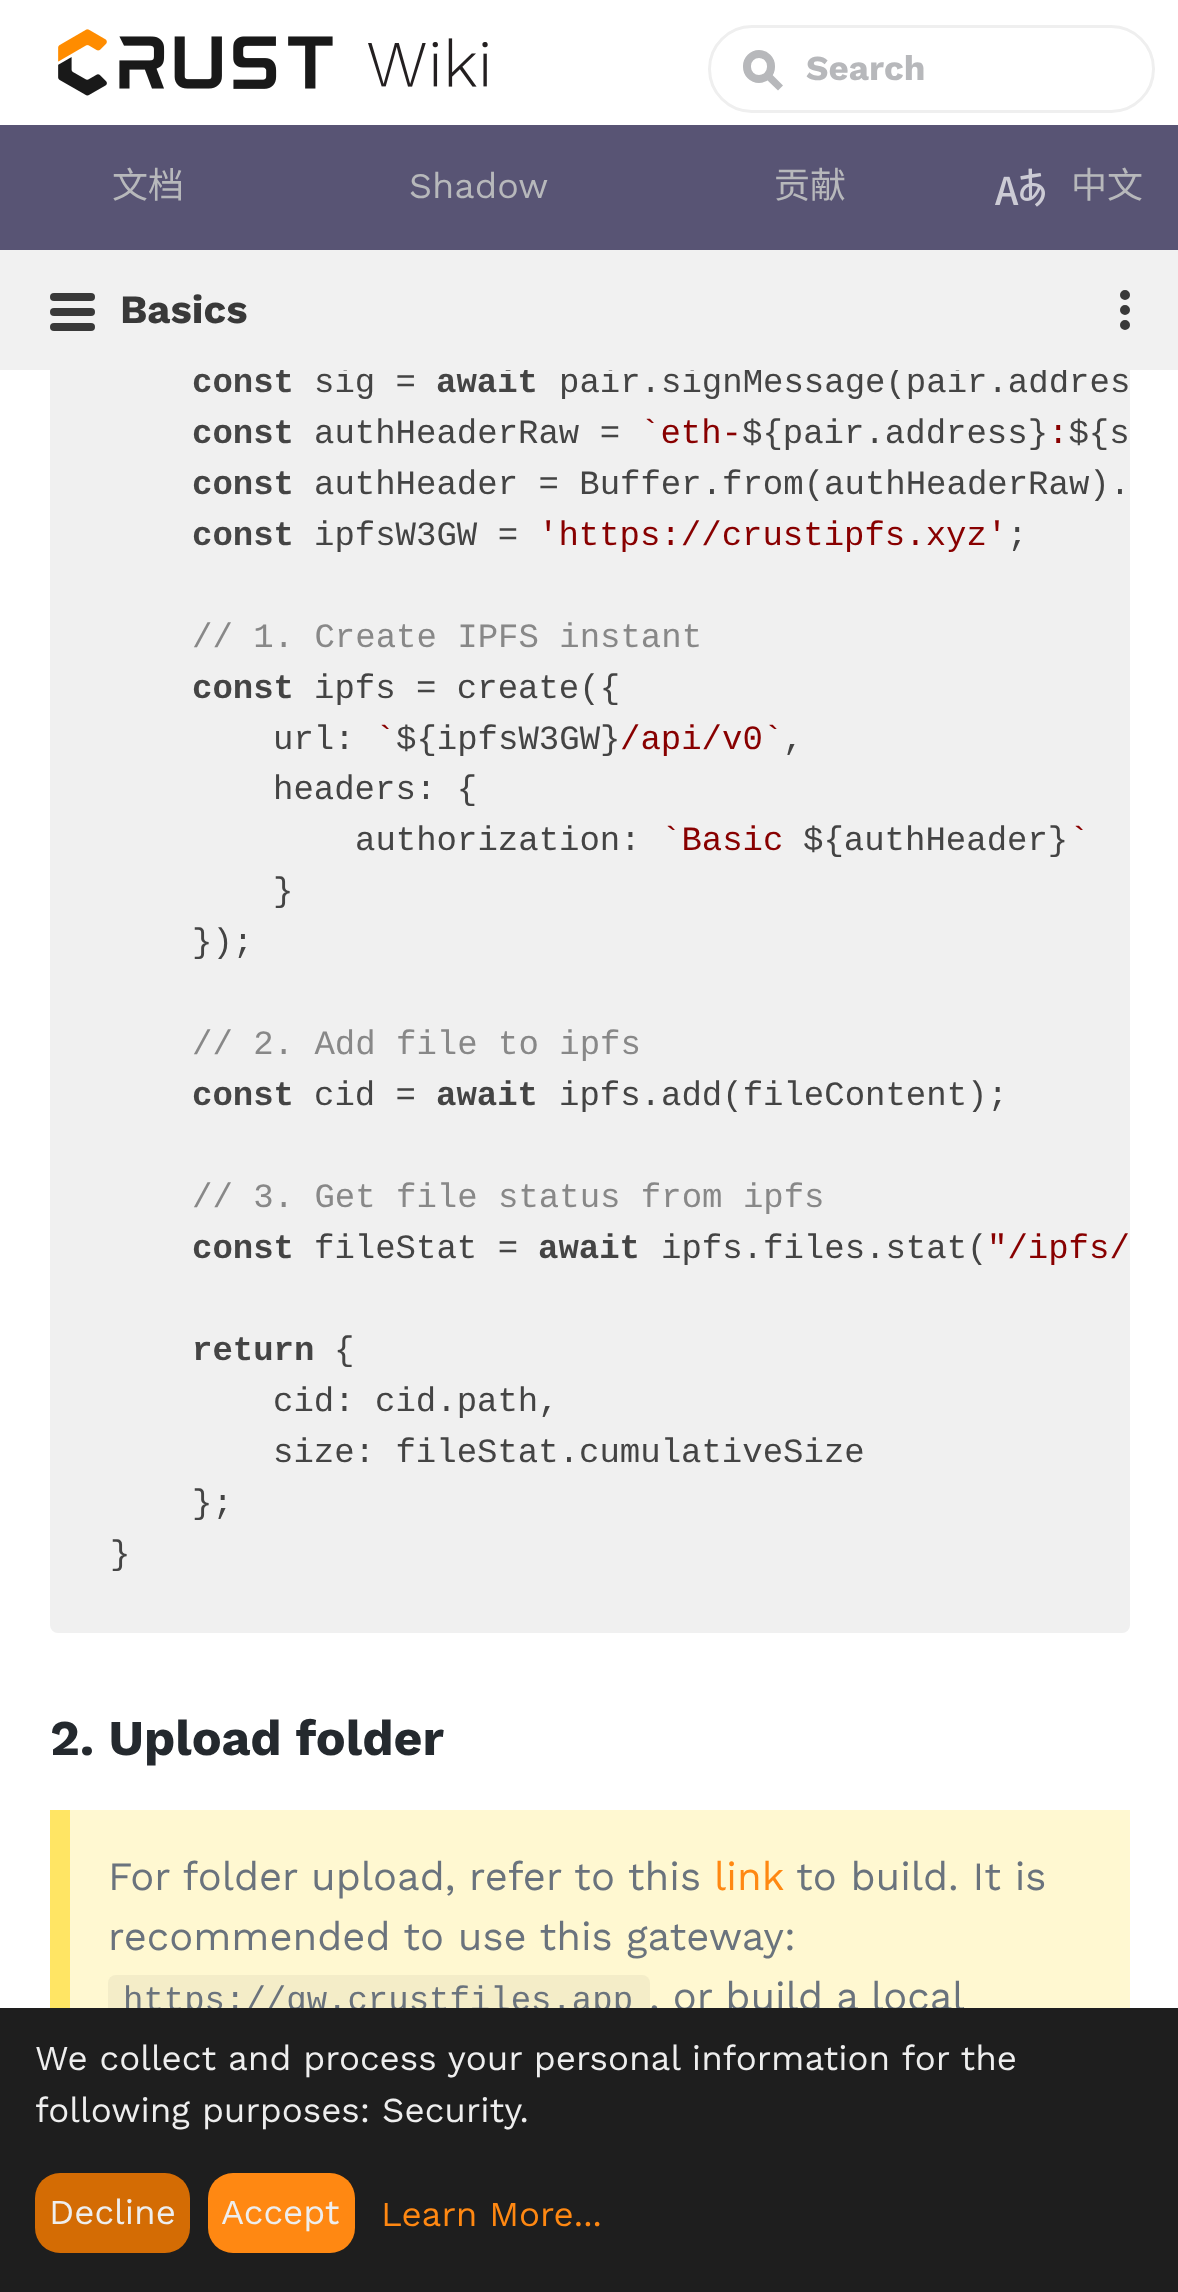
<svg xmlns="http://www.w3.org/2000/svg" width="1178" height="2292">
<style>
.a{font:bold 35px Work Sans;fill:#b7b8bb}
.b{font:36px Noto Sans CJK SC;fill:#b7b8bb}
.c{font:36px Work Sans;fill:#b7b8bb}
.d{font:bold 34px Liberation Mono;fill:#444}
.e{font:34px Liberation Mono;fill:#444}
.f{font:bold 40px Work Sans;fill:#393939}
.g{font:34px Liberation Mono;fill:#800}
.h{font:34px Liberation Mono;fill:#888}
.i{font:bold 50px Work Sans;fill:#24292e}
.j{font:40px Work Sans;fill:#6a737d}
.k{font:40px Work Sans;fill:#ff8812}
.l{font:34px Liberation Mono;fill:#6a737d}
.m{font:35px Work Sans;fill:#eee}
.n{font:35px Work Sans;fill:#ff8812}
</style>
<rect width="100%" height="100%" fill="#fff"/>
<rect fill="#f0f0f0" x="50" y="-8" width="1080" height="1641" rx="8"/>
<path fill="#fff" d="M50 0h1080v125H50z"/>
<image href="1.png" x="58" y="29" width="430" height="67"/>
<path fill="#585474" d="M0 125h1178v125H0z"/>
<rect fill="none" stroke="#efefef" stroke-width="3" x="709.5" y="26.5" width="444" height="85" rx="42.5"/>
<rect fill="none" stroke="#b7b8bb" stroke-width="8" x="747" y="54" width="24" height="25" rx="12"/>
<path fill="#b7b8bb" d="M765.5 78.5l5-5.5l12.5 12.5l-5 5z"/>
<image href="2.png" x="995" y="168" width="50" height="39"/>
<path fill="#fff8d1" d="M70 1810h1060v198H70z"/>
<path fill="#ffe564" d="M50 1810h20v198H50z"/>
<rect fill="#f4edc8" x="108" y="1975" width="542" height="53" rx="8"/>
<text class="a" x="806" y="80">Search</text>
<text class="b" x="112" y="198">文档</text>
<text class="c" x="409" y="198">Shadow</text>
<text class="b" x="774" y="198">贡献</text>
<text class="b" x="1071" y="198">中文</text>
<text class="d" x="192" y="392">const</text>
<text class="e" x="314" y="392">sig =</text>
<text class="d" x="436" y="392">await</text>
<text class="e" x="559" y="392">pair.signMessage(pair.addres</text>
<path fill="#f1f1f1" d="M0 250h1178v120H0z"/>
<circle fill="#393939" stroke="#393939" stroke-width="3" cx="1125" cy="325" r="3.5"/>
<circle fill="#393939" stroke="#393939" stroke-width="3" cx="1125" cy="295" r="3.5"/>
<circle fill="#393939" stroke="#393939" stroke-width="3" cx="1125" cy="310" r="3.5"/>
<rect fill="#393939" x="50" y="323" width="45" height="8" rx="4"/>
<rect fill="#393939" x="50" y="308" width="45" height="8" rx="4"/>
<rect fill="#393939" x="50" y="293" width="45" height="8" rx="4"/>
<text class="f" x="120" y="323">Basics</text>
<text class="d" x="192" y="443">const</text>
<text class="e" x="314" y="443">authHeaderRaw =</text>
<text class="g" x="640" y="443">`eth-</text>
<text class="e" x="742" y="443">${pair.address} ${s</text>
<text class="g" x="1048" y="443">:</text>
<text class="d" x="192" y="494">const</text>
<text class="e" x="314" y="494">authHeader = Buffer.from(authHeaderRaw).</text>
<text class="d" x="192" y="545">const</text>
<text class="e" x="314" y="545">ipfsW3GW =</text>
<text class="g" x="538" y="545">'https://crustipfs.xyz'</text>
<text class="e" x="1007" y="545">;</text>
<text class="h" x="192" y="647">// 1. Create IPFS instant</text>
<text class="d" x="192" y="698">const</text>
<text class="e" x="314" y="698">ipfs = create({</text>
<text class="e" x="273" y="749">url:</text>
<text class="g" x="375" y="749">`</text>
<text class="e" x="396" y="749">${ipfsW3GW}</text>
<text class="g" x="620" y="749">/api/v0`</text>
<text class="e" x="783" y="749">,</text>
<text class="e" x="273" y="799">headers: {</text>
<text class="e" x="355" y="850">authorization:</text>
<text class="g" x="661" y="850">`Basic</text>
<text class="e" x="803" y="850">${authHeader}</text>
<text class="g" x="1069" y="850">`</text>
<text class="e" x="273" y="901">}</text>
<text class="e" x="192" y="952">});</text>
<text class="h" x="192" y="1054">// 2. Add file to ipfs</text>
<text class="d" x="192" y="1105">const</text>
<text class="e" x="314" y="1105">cid =</text>
<text class="d" x="436" y="1105">await</text>
<text class="e" x="559" y="1105">ipfs.add(fileContent);</text>
<text class="h" x="192" y="1207">// 3. Get file status from ipfs</text>
<text class="d" x="192" y="1258">const</text>
<text class="e" x="314" y="1258">fileStat =</text>
<text class="d" x="538" y="1258">await</text>
<text class="e" x="661" y="1258">ipfs.files.stat(</text>
<text class="g" x="987" y="1258">"/ipfs/</text>
<text class="d" x="192" y="1360">return</text>
<text class="e" x="334" y="1360">{</text>
<text class="e" x="273" y="1411">cid: cid.path,</text>
<text class="e" x="273" y="1462">size: fileStat.cumulativeSize</text>
<text class="e" x="192" y="1513">};</text>
<text class="e" x="110" y="1564">}</text>
<text class="i" x="50" y="1755">2. Upload folder</text>
<text class="j" x="108" y="1890">For folder upload, refer to this</text>
<text class="k" x="714" y="1890">link</text>
<text class="j" x="796" y="1890">to build. It is</text>
<text class="j" x="108" y="1950">recommended to use this gateway:</text>
<text class="l" x="123" y="2010">https://gw.crustfiles.app</text>
<text class="j" x="649" y="2010" word-spacing="-0.5">, or build a local</text>
<path fill="#1e1e1e" d="M0 2008h1178v284H0z"/>
<text class="m" x="35" y="2070">We collect and process your personal information for the</text>
<text class="m" x="35" y="2122">following purposes: Security.</text>
<rect fill="#d46c04" x="35" y="2173" width="155" height="80" rx="25"/>
<text class="m" x="49" y="2224">Decline</text>
<rect fill="#ff8812" x="208" y="2173" width="147" height="80" rx="25"/>
<text class="m" x="221" y="2224">Accept</text>
<text class="n" x="381" y="2226">Learn More...</text>
</svg>
